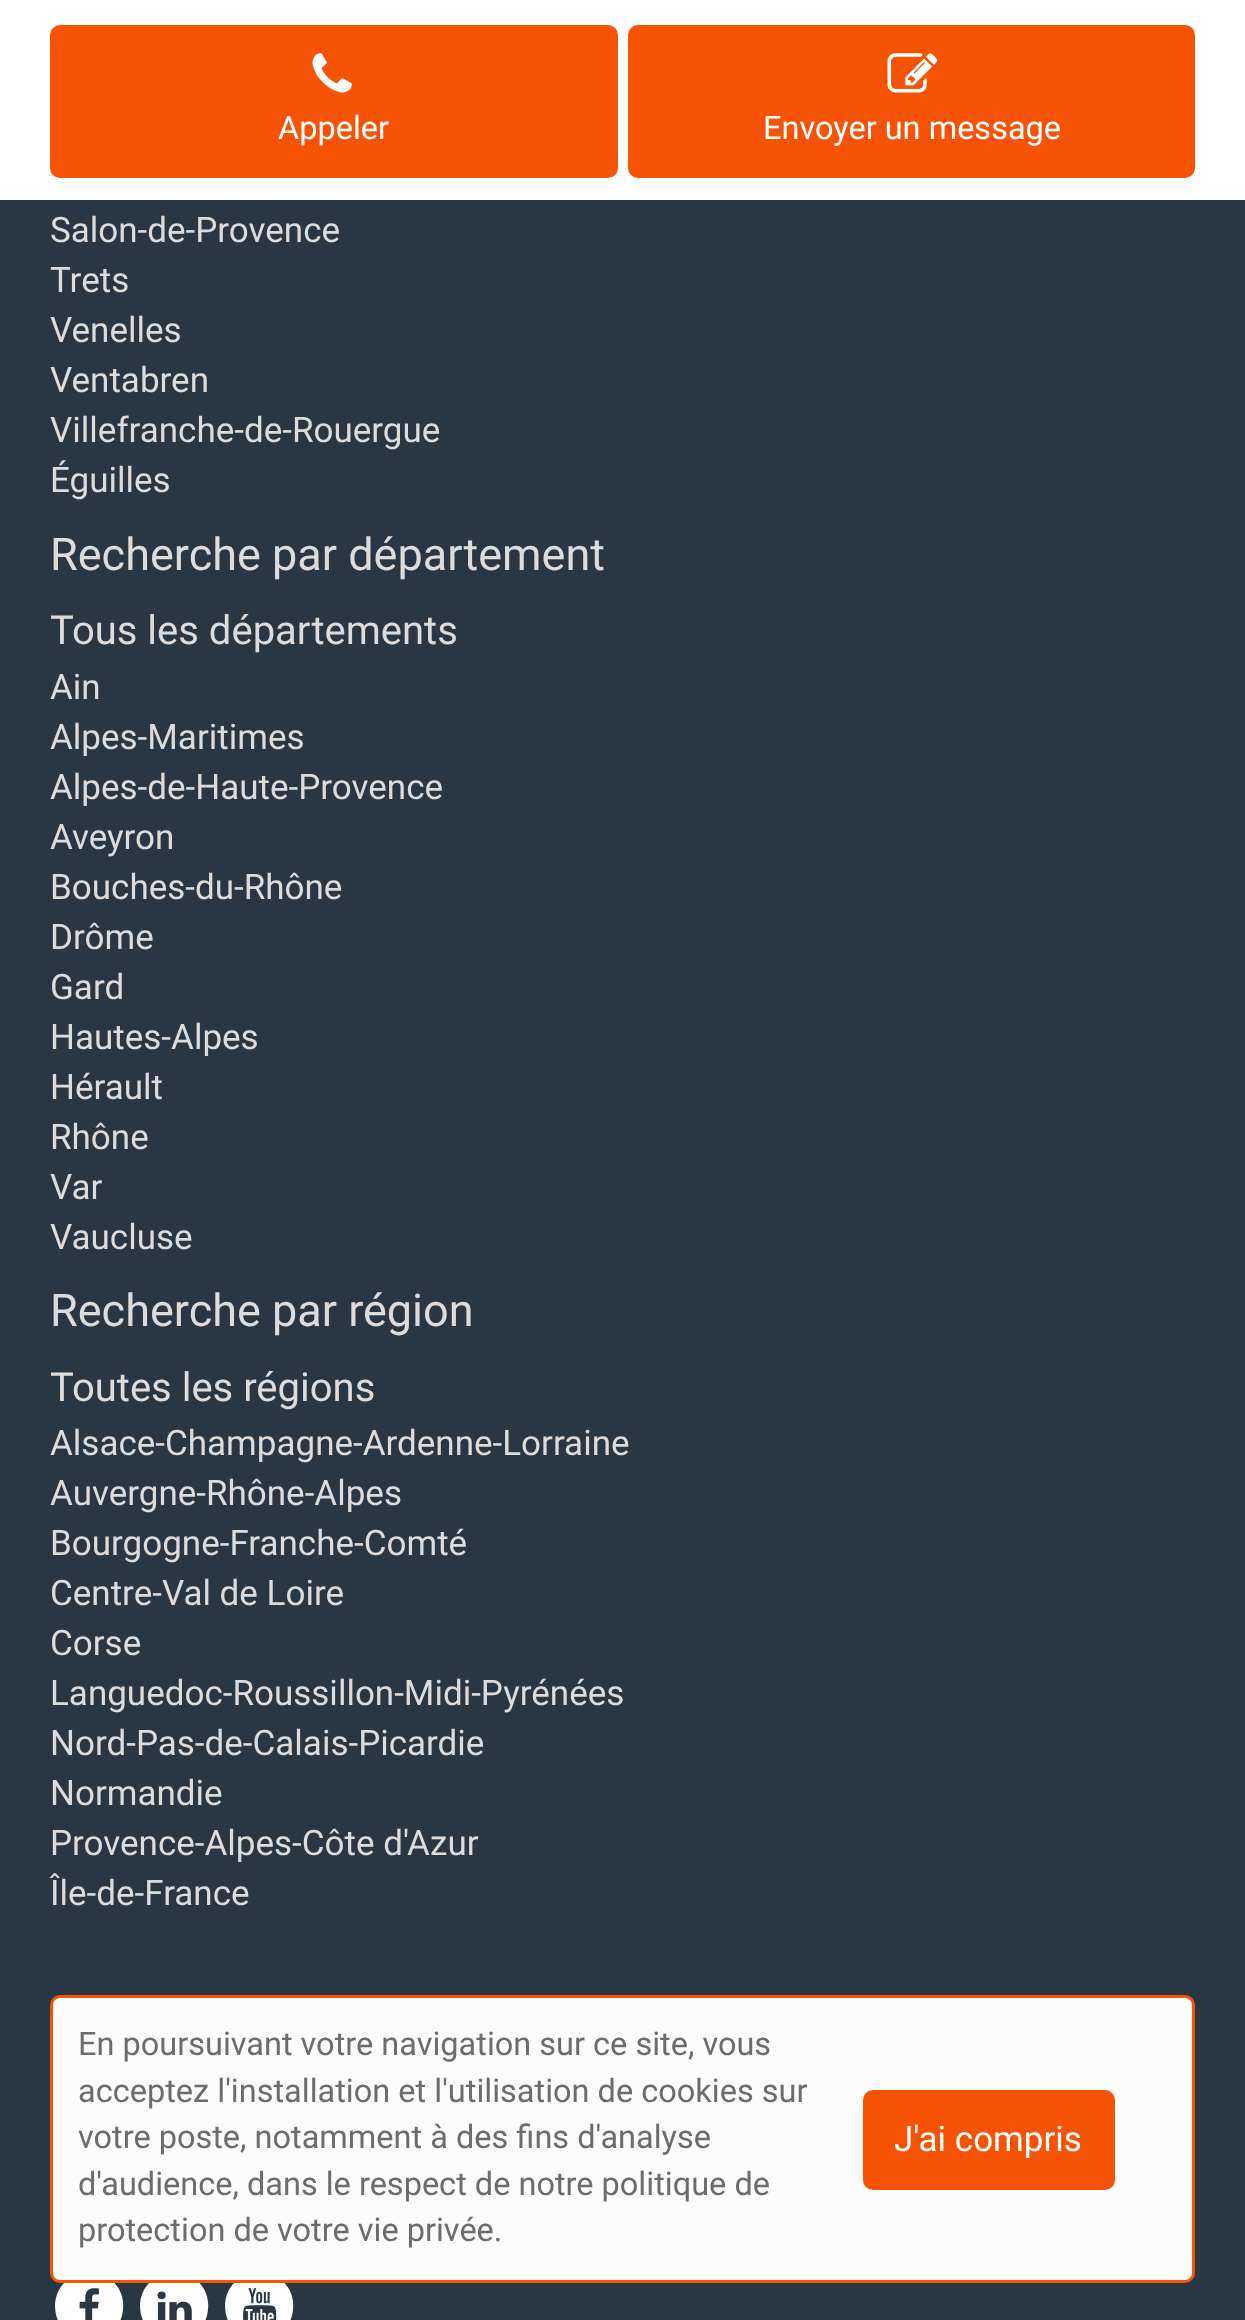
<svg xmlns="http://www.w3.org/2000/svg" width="1245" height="2320">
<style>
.a{font:32.5px Roboto;fill:#fff}
.b{font:35px Roboto;fill:#dedbdb}
.c{font:45px Roboto;fill:#dedbdb}
.d{font:40px Roboto;fill:#dedbdb}
.e{font:32.5px Roboto;fill:#6d6c6c}
.f{font:35px Roboto;fill:#fff}
</style>
<rect width="100%" height="100%" fill="#293643"/>
<path fill="#fff" d="M0 0h1245v200H0z"/>
<rect fill="#f65304" stroke="#f65304" stroke-width="3" x="51.5" y="26.5" width="565" height="150" rx="8.5"/>
<image href="1.png" x="312" y="53" width="40" height="40"/>
<rect fill="#f65304" stroke="#f65304" stroke-width="3" x="629.5" y="26.5" width="564" height="150" rx="8.5"/>
<image href="2.png" x="887" y="53" width="51" height="40"/>
<path fill="#fff" d="M119 2289c3 6 5 13 4 20c-2 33-47 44-63 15c-4-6-5-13-5-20c2-33 47-44 64-15z"/>
<image href="3.png" x="79" y="2288" width="20" height="32"/>
<path fill="#fff" d="M204 2289c3 6 5 13 4 20c-2 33-47 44-63 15c-4-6-5-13-5-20c2-33 47-44 64-15z"/>
<image href="4.png" x="157" y="2291" width="35" height="29"/>
<path fill="#fff" d="M289 2289c3 6 5 13 4 20c-2 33-47 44-63 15c-4-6-5-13-5-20c2-33 47-44 64-15z"/>
<image href="5.png" x="243" y="2288" width="34" height="32"/>
<rect fill="#fcfcfc" stroke="#f65304" stroke-width="3" x="51.5" y="1996.5" width="1142" height="285" rx="8.5"/>
<rect fill="#f65304" stroke="#f65304" stroke-width="3" x="864.5" y="2091.5" width="249" height="97" rx="8.5"/>
<text class="a" x="278" y="139">Appeler</text>
<text class="a" x="763" y="139">Envoyer un message</text>
<text class="b" x="50" y="242">Salon-de-Provence</text>
<text class="b" x="50" y="292">Trets</text>
<text class="b" x="50" y="342">Venelles</text>
<text class="b" x="50" y="392">Ventabren</text>
<text class="b" x="50" y="442">Villefranche-de-Rouergue</text>
<text class="b" x="50" y="492">Éguilles</text>
<text class="c" x="50" y="570">Recherche par département</text>
<text class="d" x="50" y="644">Tous les départements</text>
<text class="b" x="50" y="699">Ain</text>
<text class="b" x="50" y="749">Alpes-Maritimes</text>
<text class="b" x="50" y="799">Alpes-de-Haute-Provence</text>
<text class="b" x="50" y="849">Aveyron</text>
<text class="b" x="50" y="899">Bouches-du-Rhône</text>
<text class="b" x="50" y="949">Drôme</text>
<text class="b" x="50" y="999">Gard</text>
<text class="b" x="50" y="1049">Hautes-Alpes</text>
<text class="b" x="50" y="1099">Hérault</text>
<text class="b" x="50" y="1149">Rhône</text>
<text class="b" x="50" y="1199">Var</text>
<text class="b" x="50" y="1249">Vaucluse</text>
<text class="c" x="50" y="1326">Recherche par région</text>
<text class="d" x="50" y="1401">Toutes les régions</text>
<text class="b" x="50" y="1455">Alsace-Champagne-Ardenne-Lorraine</text>
<text class="b" x="50" y="1505">Auvergne-Rhône-Alpes</text>
<text class="b" x="50" y="1555">Bourgogne-Franche-Comté</text>
<text class="b" x="50" y="1605">Centre-Val de Loire</text>
<text class="b" x="50" y="1655">Corse</text>
<text class="b" x="50" y="1705">Languedoc-Roussillon-Midi-Pyrénées</text>
<text class="b" x="50" y="1755">Nord-Pas-de-Calais-Picardie</text>
<text class="b" x="50" y="1805">Normandie</text>
<text class="b" x="50" y="1855">Provence-Alpes-Côte d'Azur</text>
<text class="b" x="50" y="1905">Île-de-France</text>
<text class="e" x="78" y="2055">En poursuivant votre navigation sur ce site, vous</text>
<text class="e" x="78" y="2102">acceptez l'installation et l'utilisation de cookies sur</text>
<text class="e" x="78" y="2148">votre poste, notamment à des fins d'analyse</text>
<text class="e" x="78" y="2195">d'audience, dans le respect de notre politique de</text>
<text class="e" x="78" y="2241">protection de votre vie privée.</text>
<text class="f" x="894" y="2151">J'ai compris</text>
</svg>
